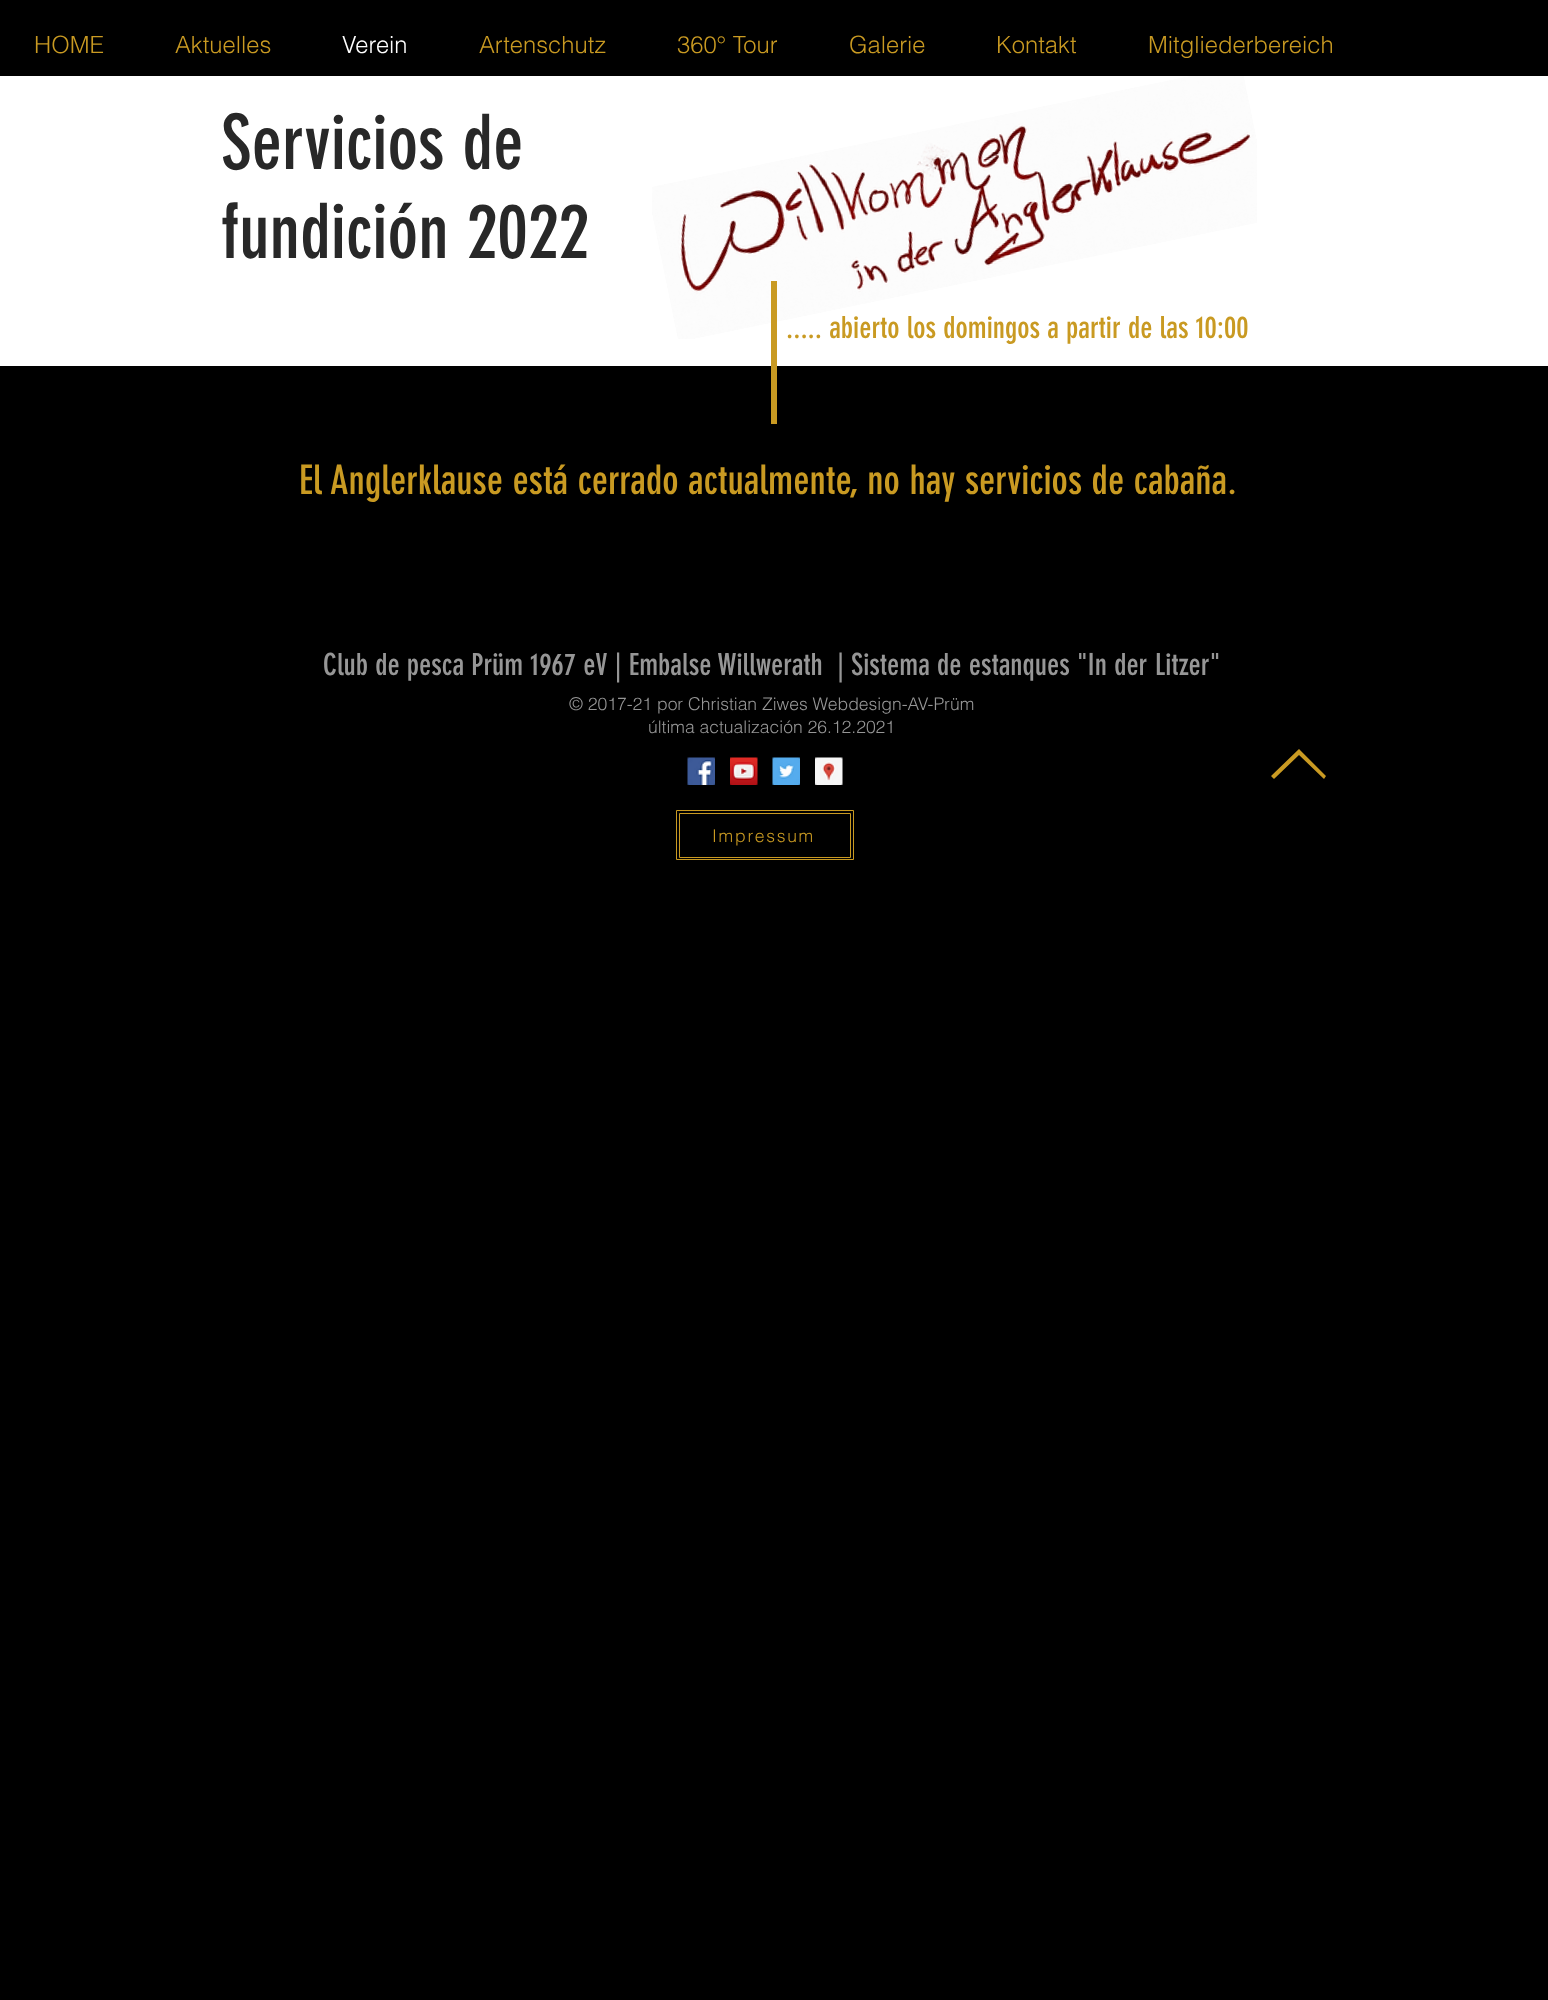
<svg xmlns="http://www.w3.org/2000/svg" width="1548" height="2000">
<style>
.a{font:300 23.75px helvetica;fill:#c99a22}
.b{font:300 23.75px helvetica;fill:#fff}
.c{font:75px 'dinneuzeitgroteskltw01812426';fill:#282828}
.d{font:30px 'dinneuzeitgroteskltw01812426';fill:#c99a22}
.e{font:40px 'dinneuzeitgroteskltw01812426';fill:#c99a22}
.f{font:30px 'dinneuzeitgroteskltw01812426';fill:#969696}
.g{font:300 17.5px helvetica;fill:#969696}
.h{font:300 17.5px helvetica;letter-spacing:1.75px;fill:#c99a22}
</style>
<rect width="100%" height="100%" fill="#000"/>
<path fill="#fff" d="M0 76h1548v290H0z"/>
<image href="1.png" x="652" y="76" width="605" height="263"/>
<path fill="#c99a22" d="M771 281h6v143H771z"/>
<image href="2.png" x="687" y="757" width="28" height="28"/>
<image href="3.png" x="730" y="757" width="28" height="28"/>
<image href="4.png" x="772" y="757" width="28" height="28"/>
<image href="5.png" x="815" y="757" width="28" height="28"/>
<path fill="#c99a22" d="M1271 776l3 3l25-24l25 24l2-3l-27-27z"/>
<path fill="none" stroke="#c99a22" d="M676.5 810.5h177v49H676.5z"/>
<path fill="none" stroke="#c99a22" d="M679.5 813.5h171v44H679.5z"/>
<text class="a" x="34" y="53">HOME</text>
<text class="a" x="175" y="53">Aktuelles</text>
<text class="b" x="342" y="53">Verein</text>
<text class="a" x="479" y="53">Artenschutz</text>
<text class="a" x="677" y="53">360° Tour</text>
<text class="a" x="849" y="53">Galerie</text>
<text class="a" x="996" y="53">Kontakt</text>
<text class="a" x="1148" y="53">Mitgliederbereich</text>
<text class="c" x="221" y="169">Servicios de</text>
<text class="c" x="221" y="258">fundición 2022</text>
<text class="d" x="786" y="338">..... abierto los domingos a partir de las 10:00</text>
<text class="e" x="299" y="494">El Anglerklause está cerrado actualmente, no hay servicios de cabaña.</text>
<text class="f" xml:space="preserve" x="323" y="675">Club de pesca Prüm 1967 eV | Embalse Willwerath  | Sistema de estanques "In der Litzer"</text>
<text class="g" x="569" y="710">© 2017-21 por Christian Ziwes Webdesign-AV-Prüm</text>
<text class="g" x="648" y="733">última actualización 26.12.2021</text>
<text class="h" x="712" y="842">Impressum</text>
</svg>
